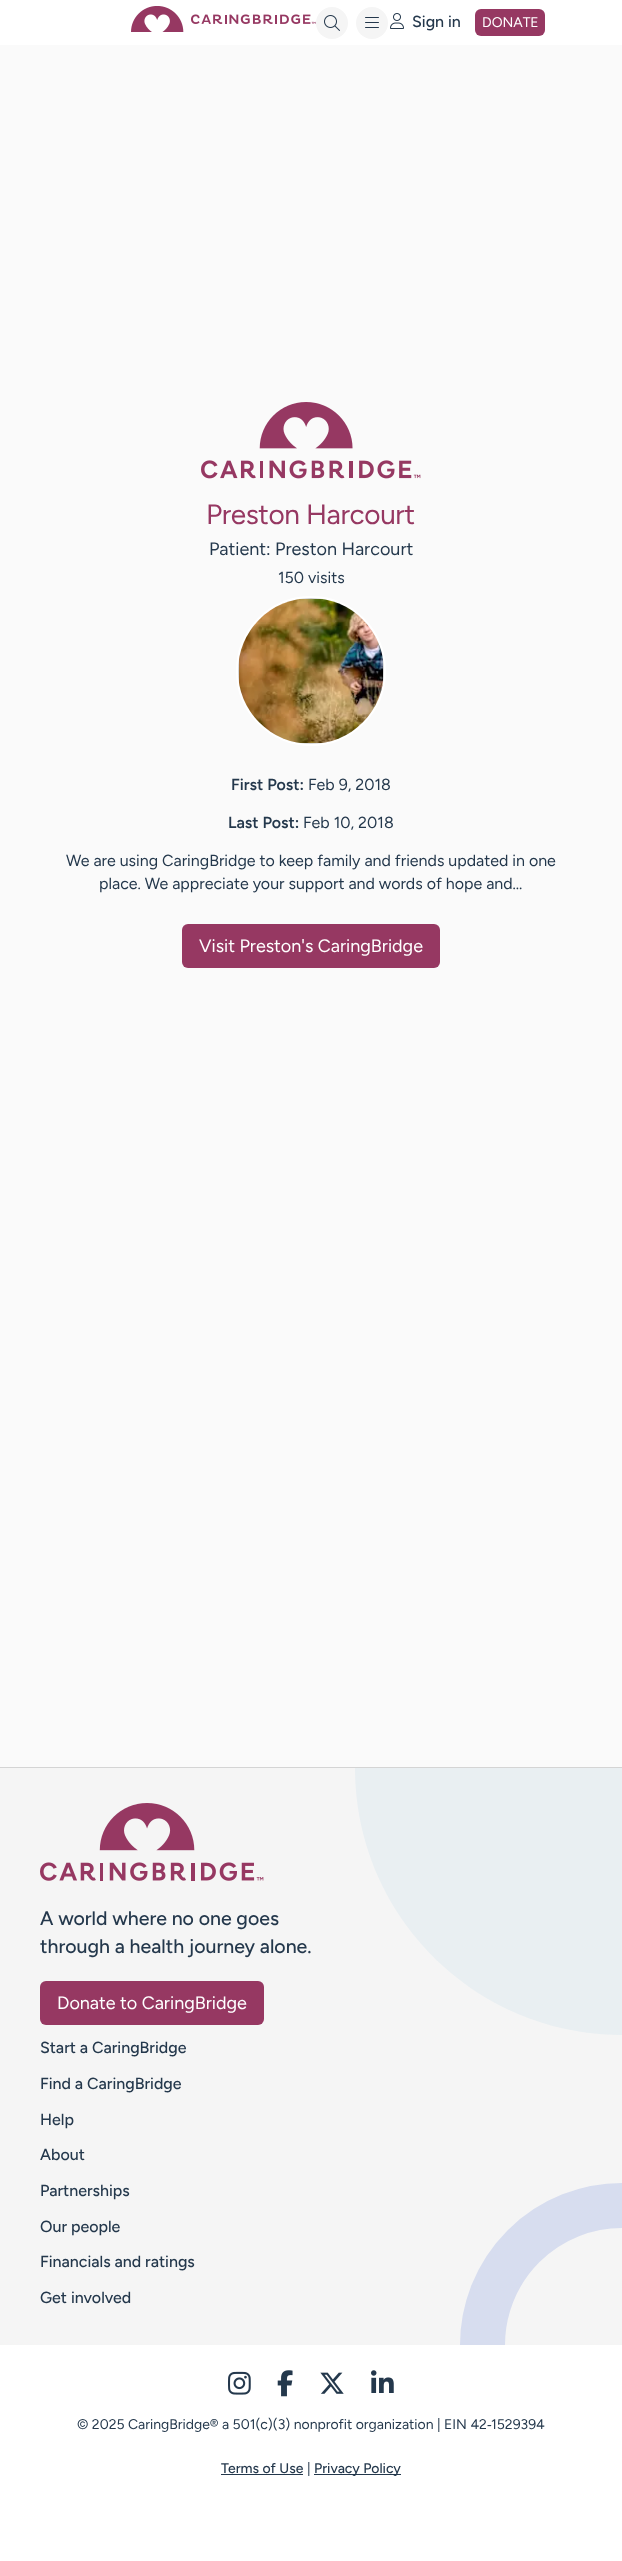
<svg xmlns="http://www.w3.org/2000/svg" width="622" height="2561">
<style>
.a{font:500 16px Figtree;fill:#24384c}
.b{font:14px Figtree;fill:#fff}
.c{font:28px Figtree;letter-spacing:-0.4px;fill:#963862}
.d{font:18px Figtree;fill:#24384c}
.e{font:16px Figtree;fill:#24384c}
.f{font:600 16px Figtree;fill:#24384c}
.g{font:18px Figtree;fill:#fff}
.h{font:500 19.5px Figtree;fill:#24384c}
.i{font:14px Figtree;fill:#24384c}
.j{font:14px Liberation Sans;fill:#24384c}
.k{font:500 14px Figtree;fill:#24384c}
</style>
<defs>
<clipPath id="clip1"><path d="M0 1768h622v577H0z"/></clipPath>
</defs>
<rect width="100%" height="100%" fill="#fafafa"/>
<path fill="#fff" d="M0 0h622v45H0z"/>
<image href="1.png" x="131" y="6" width="185" height="26"/>
<circle fill="#f5f5f5" cx="332" cy="23" r="16"/>
<image href="2.png" x="324" y="15" width="16" height="16"/>
<circle fill="#f5f5f5" cx="372" cy="23" r="16"/>
<image href="3.png" x="365" y="17" width="14" height="11"/>
<image href="4.png" x="390" y="13" width="14" height="16"/>
<rect fill="#963862" x="475" y="9" width="70" height="27" rx="6"/>
<image href="5.png" x="201" y="402" width="220" height="77"/>
<circle fill="none" stroke="#fff" stroke-width="2" cx="311" cy="671" r="74"/>
<path fill="#ccc" fill-rule="evenodd" d="M311 598l-12 1h24zm72 61c1 8 1 16 0 24zm-60 84c-8 1-16 1-24 0zm-84-60c-1-8-1-16 0-24z"/>
<image href="6.png" x="239" y="599" width="144" height="144"/>
<rect fill="#963862" x="182" y="924" width="258" height="44" rx="6"/>
<path fill="#f5f5f5" d="M0 1768h622v577H0z"/>
<path fill="#d4d4d4" d="M0 1767h622v1H0z"/>
<image href="7.png" x="40" y="1803" width="224" height="78"/>
<rect fill="#963862" x="40" y="1981" width="224" height="44" rx="6"/>
<path fill="#e9eff2" d="M355 1768h267v267c-147.5 0-267-119.5-267-267z"/>
<path fill="#fff" d="M0 2345h622v216H0z"/>
<image href="8.png" x="228" y="2371" width="23" height="24"/>
<image href="9.png" x="277" y="2370" width="16" height="27"/>
<image href="10.png" x="320" y="2372" width="24" height="22"/>
<image href="11.png" x="371" y="2370" width="23" height="23"/>
<path fill="#24384c" d="M221 2474h82v1H221z"/>
<path fill="#24384c" d="M314 2474h87v1H314z"/>
<text class="a" x="412" y="27">Sign in</text>
<text class="b" x="482" y="27">DONATE</text>
<text class="c" x="206" y="524">Preston Harcourt</text>
<text class="d" x="209" y="555">Patient: Preston Harcourt</text>
<text class="e" x="278" y="583">150 visits</text>
<text class="f" x="231" y="790">First Post:</text>
<text class="e" x="308" y="790">Feb 9, 2018</text>
<text class="f" x="228" y="828">Last Post:</text>
<text class="e" x="303" y="828">Feb 10, 2018</text>
<text class="e" x="66" y="866">We are using CaringBridge to keep family and friends updated in one</text>
<text class="e" x="99" y="889">place. We appreciate your support and words of hope and…</text>
<text class="g" x="199" y="952">Visit Preston's CaringBridge</text>
<text class="h" x="40" y="1925">A world where no one goes</text>
<text class="h" x="40" y="1953">through a health journey alone.</text>
<text class="g" x="57" y="2009">Donate to CaringBridge</text>
<text class="a" x="40" y="2053">Start a CaringBridge</text>
<text class="a" x="40" y="2089">Find a CaringBridge</text>
<text class="a" x="40" y="2125">Help</text>
<text class="a" x="40" y="2160">About</text>
<text class="a" x="40" y="2196">Partnerships</text>
<text class="a" x="40" y="2232">Our people</text>
<text class="a" x="40" y="2267">Financials and ratings</text>
<text class="a" x="40" y="2303">Get involved</text>
<text class="i" x="77" y="2429">© 2025 CaringBridge® a 501(c)(3) nonprofit organization | EIN 42</text>
<text class="j" x="487" y="2429">‑</text>
<text class="i" x="491" y="2429">1529394</text>
<g clip-path="url(#clip1)">
<circle fill="none" stroke="#d7ddef" stroke-width="45" cx="622" cy="2345" r="139.5"/>
</g>
<text class="k" x="221" y="2473">Terms of Use</text>
<text class="i" x="307" y="2473">|</text>
<text class="k" x="314" y="2473">Privacy Policy</text>
</svg>
